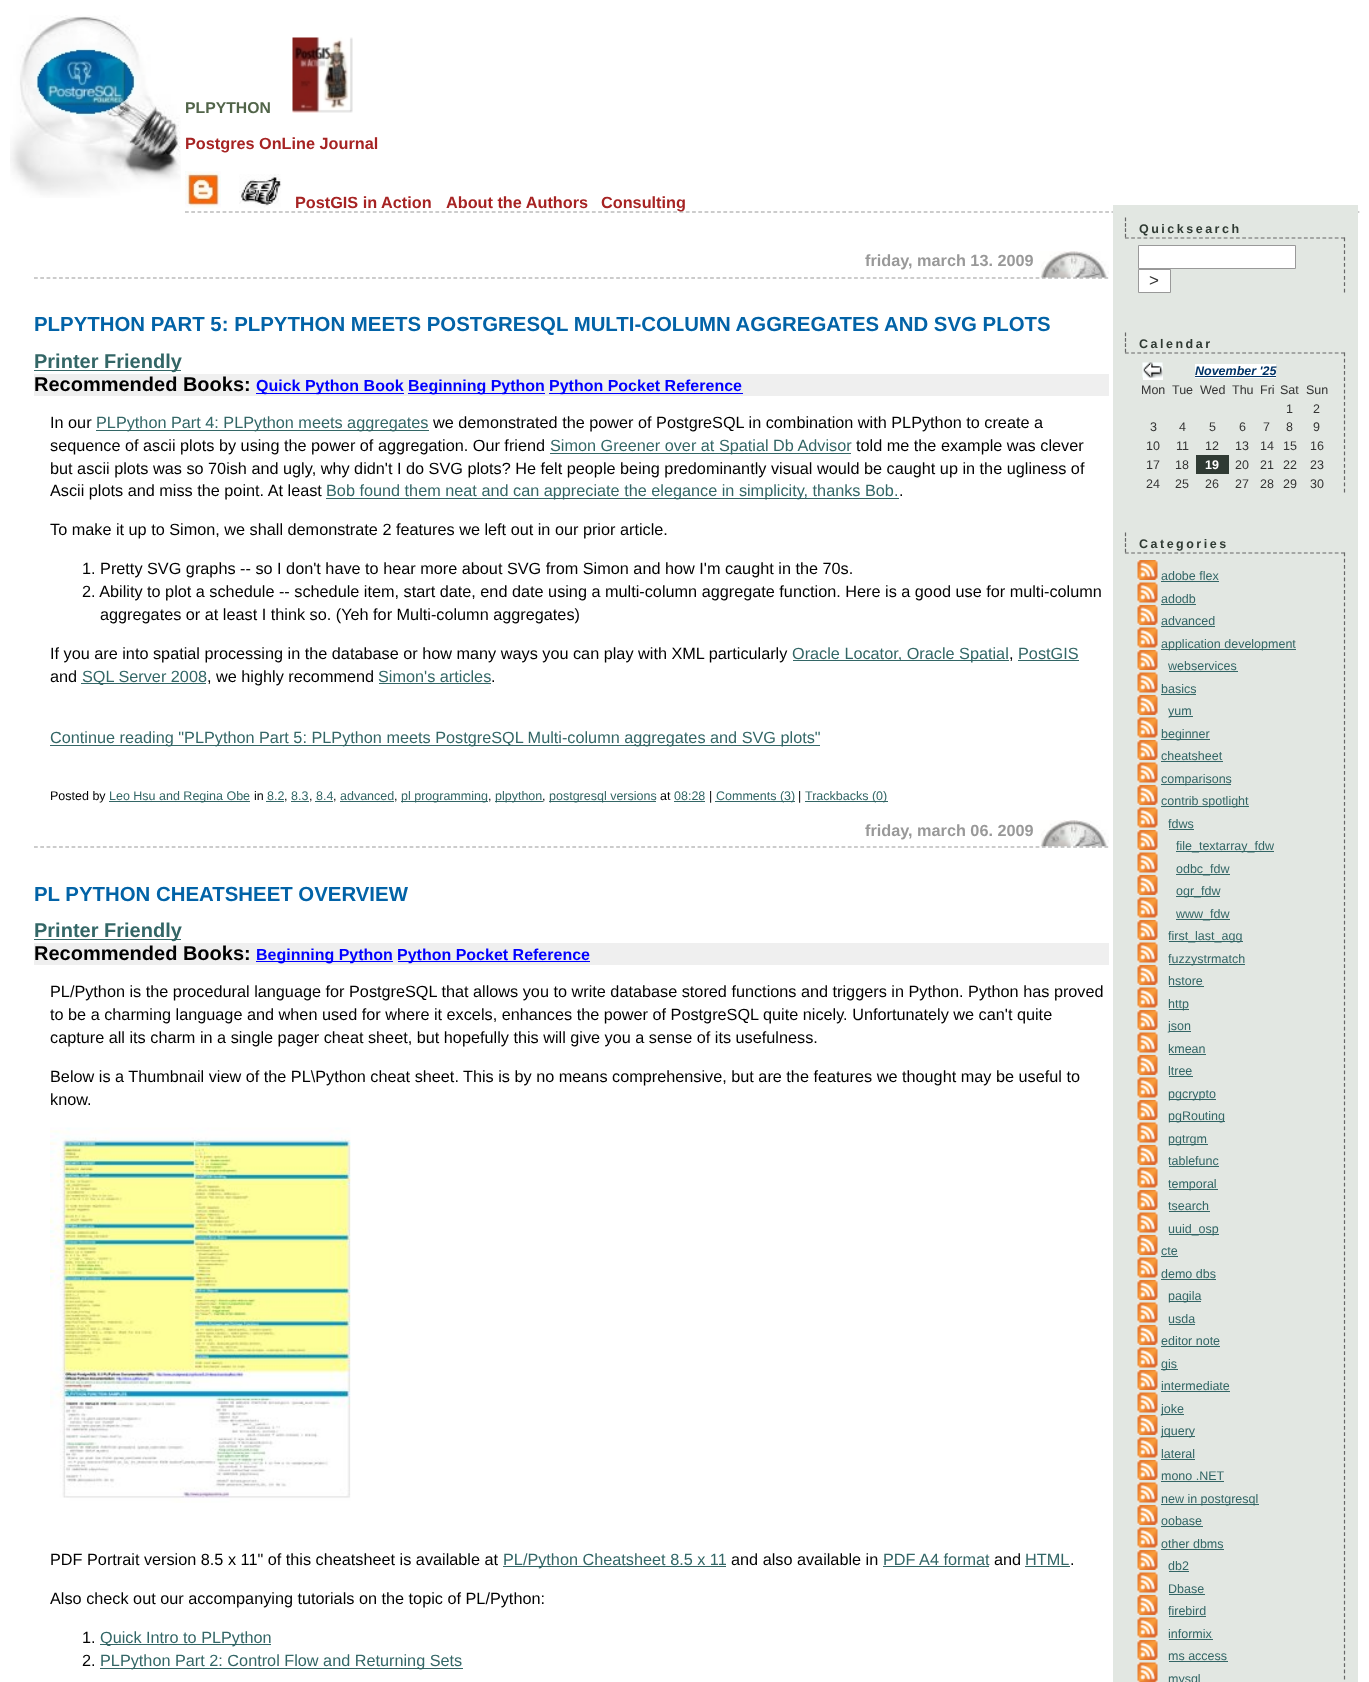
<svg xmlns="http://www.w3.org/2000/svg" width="1369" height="1682">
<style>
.a{font:bold 15.75px Liberation Sans;fill:#52654a}
.b{font:bold 16.25px Liberation Sans;fill:#a62323}
.c{font:bold 16.25px Liberation Sans;fill:#999}
.d{font:bold 20.4px Liberation Sans;fill:#0263a7}
.e{font:bold 20px Liberation Sans;fill:#366}
.f{font:bold 20px Liberation Sans;fill:#000}
.g{font:bold 16px Liberation Sans;fill:#00f}
.h{font:16.25px Liberation Sans;fill:#000}
.i{font:16.25px Liberation Sans;fill:#366}
.j{font:12.5px Liberation Sans;fill:#000}
.k{font:12.5px Liberation Sans;fill:#366}
.l{font:bold 12.5px Liberation Sans;letter-spacing:2.5px;fill:#2f3a33}
.m{font:17px Liberation Sans;fill:#333}
.n{font:italic bold 12.5px Liberation Sans;fill:#036}
.o{font:12.5px Liberation Sans;fill:#333}
.p{font:bold 12.5px Liberation Sans;fill:#fff}
</style>
<rect width="100%" height="100%" fill="#fff"/>
<image href="1.png" x="10" y="15" width="171" height="183"/>
<image href="2.png" x="292" y="37" width="61" height="76"/>
<path fill="none" stroke="#999" stroke-width="1.2" stroke-dasharray="3.75 2.51" d="M185 212h1175"/>
<image href="3.png" x="185" y="171" width="36" height="37"/>
<image href="4.png" x="239" y="174" width="43" height="34"/>
<image href="5.png" x="1040" y="251" width="69" height="27"/>
<path fill="none" stroke="#999" stroke-width="1.2" stroke-dasharray="3.75 2.51" d="M34 278h1075"/>
<path fill="#366" d="M34 370h147v1H34z"/>
<path fill="#efefef" d="M34 374h1075v22H34z"/>
<path fill="#00f" d="M256 393h148v1H256z"/>
<path fill="#00f" d="M408 393h137v1H408z"/>
<path fill="#00f" d="M549 393h194v1H549z"/>
<path fill="#366" d="M96 430h333v1H96z"/>
<path fill="#366" d="M550 453h301v1H550z"/>
<path fill="#366" d="M326 498h573v1H326z"/>
<path fill="#366" d="M793 660h216v1H793z"/>
<path fill="#366" d="M1018 660h61v1H1018z"/>
<path fill="#366" d="M81 683h125v1H81z"/>
<path fill="#366" d="M379 683h112v1H379z"/>
<path fill="#366" d="M50 745h770v1H50z"/>
<path fill="#366" d="M109 801h141v1H109z"/>
<path fill="#366" d="M266 801h18v1H266z"/>
<path fill="#366" d="M291 801h18v1H291z"/>
<path fill="#366" d="M315 801h18v1H315z"/>
<path fill="#366" d="M340 801h54v1H340z"/>
<path fill="#366" d="M401 801h87v1H401z"/>
<path fill="#366" d="M495 801h48v1H495z"/>
<path fill="#366" d="M549 801h107v1H549z"/>
<path fill="#366" d="M674 801h31v1H674z"/>
<path fill="#366" d="M715 801h80v1H715z"/>
<path fill="#366" d="M805 801h83v1H805z"/>
<image href="6.png" x="1040" y="820" width="69" height="27"/>
<path fill="none" stroke="#999" stroke-width="1.2" stroke-dasharray="3.75 2.51" d="M34 847h1075"/>
<path fill="#366" d="M34 939h147v1H34z"/>
<path fill="#efefef" d="M34 943h1075v22H34z"/>
<path fill="#00f" d="M256 961h137v1H256z"/>
<path fill="#00f" d="M398 961h192v1H398z"/>
<image href="7.png" x="50" y="1127" width="301" height="376"/>
<path fill="#366" d="M503 1566h223v1H503z"/>
<path fill="#366" d="M883 1566h106v1H883z"/>
<path fill="#366" d="M1025 1566h45v1H1025z"/>
<path fill="#366" d="M100 1644h171v1H100z"/>
<path fill="#366" d="M100 1668h363v1H100z"/>
<path fill="#e2e7e2" d="M1113 205h245v1477H1113z"/>
<path fill="none" stroke="#666" stroke-width="1.2" stroke-dasharray="3.75 1.66" d="M1125.5 217.5v20"/>
<path fill="none" stroke="#666" stroke-width="1.2" stroke-dasharray="3.75 2.42" d="M1125 238h220"/>
<path fill="none" stroke="#666" stroke-width="1.2" stroke-dasharray="3.75 2.65" d="M1344.5 237.5v55"/>
<path fill="#fff" stroke="#999" d="M1138.5 245.5h157v23H1138.5z"/>
<path fill="#fff" stroke="#999" d="M1138.5 269.5h32v23H1138.5z"/>
<path fill="none" stroke="#666" stroke-width="1.2" stroke-dasharray="3.75 1.66" d="M1125.5 332.5v20"/>
<path fill="none" stroke="#666" stroke-width="1.2" stroke-dasharray="3.75 2.42" d="M1125 353h220"/>
<path fill="none" stroke="#666" stroke-width="1.2" stroke-dasharray="3.75 2.44" d="M1344.5 352.5v140"/>
<path fill="#fff" d="M1143 366h20v14H1143z"/>
<image href="8.png" x="1142" y="362" width="21" height="16"/>
<path fill="#fff" d="M1195 364h81v14H1195z"/>
<path fill="#036" d="M1195 376h81v1H1195z"/>
<path fill="#2f3a33" d="M1196 455h33v19H1196z"/>
<path fill="none" stroke="#666" stroke-width="1.2" stroke-dasharray="3.75 1.66" d="M1125.5 532.5v20"/>
<path fill="none" stroke="#666" stroke-width="1.2" stroke-dasharray="3.75 2.42" d="M1125 553h220"/>
<path fill="none" stroke="#666" stroke-width="1.2" stroke-dasharray="3.75 2.49" d="M1344.5 552.5v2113.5"/>
<image href="9.png" x="1137" y="560" width="21" height="20"/>
<path fill="#366" d="M1161 581h58v1H1161z"/>
<image href="10.png" x="1137" y="582" width="21" height="21"/>
<path fill="#366" d="M1161 604h35v1H1161z"/>
<image href="9.png" x="1137" y="605" width="21" height="20"/>
<path fill="#366" d="M1161 626h54v1H1161z"/>
<image href="11.png" x="1137" y="627" width="21" height="21"/>
<path fill="#366" d="M1161 649h135v1H1161z"/>
<image href="9.png" x="1137" y="650" width="21" height="20"/>
<path fill="#366" d="M1169 671h69v1H1169z"/>
<image href="11.png" x="1137" y="672" width="21" height="21"/>
<path fill="#366" d="M1161 694h35v1H1161z"/>
<image href="9.png" x="1137" y="695" width="21" height="20"/>
<path fill="#366" d="M1169 716h24v1H1169z"/>
<image href="11.png" x="1137" y="717" width="21" height="21"/>
<path fill="#366" d="M1161 739h49v1H1161z"/>
<image href="9.png" x="1137" y="740" width="21" height="20"/>
<path fill="#366" d="M1161 761h62v1H1161z"/>
<image href="11.png" x="1137" y="762" width="21" height="21"/>
<path fill="#366" d="M1161 784h70v1H1161z"/>
<image href="9.png" x="1137" y="785" width="21" height="20"/>
<path fill="#366" d="M1161 806h88v1H1161z"/>
<image href="11.png" x="1137" y="807" width="21" height="21"/>
<path fill="#366" d="M1169 829h25v1H1169z"/>
<image href="9.png" x="1137" y="830" width="21" height="20"/>
<path fill="#366" d="M1176 851h98v1H1176z"/>
<image href="11.png" x="1137" y="852" width="21" height="21"/>
<path fill="#366" d="M1176 874h54v1H1176z"/>
<image href="9.png" x="1137" y="875" width="21" height="20"/>
<path fill="#366" d="M1176 896h44v1H1176z"/>
<image href="11.png" x="1137" y="897" width="21" height="21"/>
<path fill="#366" d="M1176 919h54v1H1176z"/>
<image href="9.png" x="1137" y="920" width="21" height="20"/>
<path fill="#366" d="M1169 941h74v1H1169z"/>
<image href="11.png" x="1137" y="942" width="21" height="21"/>
<path fill="#366" d="M1169 964h76v1H1169z"/>
<image href="9.png" x="1137" y="965" width="21" height="20"/>
<path fill="#366" d="M1169 986h35v1H1169z"/>
<image href="11.png" x="1137" y="987" width="21" height="21"/>
<path fill="#366" d="M1169 1009h20v1H1169z"/>
<image href="9.png" x="1137" y="1010" width="21" height="20"/>
<path fill="#366" d="M1169 1031h22v1H1169z"/>
<image href="11.png" x="1137" y="1032" width="21" height="21"/>
<path fill="#366" d="M1169 1054h37v1H1169z"/>
<image href="9.png" x="1137" y="1055" width="21" height="20"/>
<path fill="#366" d="M1169 1076h24v1H1169z"/>
<image href="11.png" x="1137" y="1077" width="21" height="21"/>
<path fill="#366" d="M1169 1099h47v1H1169z"/>
<image href="9.png" x="1137" y="1100" width="21" height="20"/>
<path fill="#366" d="M1169 1121h56v1H1169z"/>
<image href="11.png" x="1137" y="1122" width="21" height="21"/>
<path fill="#366" d="M1169 1144h39v1H1169z"/>
<image href="9.png" x="1137" y="1145" width="21" height="20"/>
<path fill="#366" d="M1169 1166h50v1H1169z"/>
<image href="10.png" x="1137" y="1167" width="21" height="21"/>
<path fill="#366" d="M1169 1189h49v1H1169z"/>
<image href="9.png" x="1137" y="1190" width="21" height="20"/>
<path fill="#366" d="M1169 1211h41v1H1169z"/>
<image href="11.png" x="1137" y="1212" width="21" height="21"/>
<path fill="#366" d="M1169 1234h50v1H1169z"/>
<image href="9.png" x="1137" y="1235" width="21" height="20"/>
<path fill="#366" d="M1161 1256h17v1H1161z"/>
<image href="11.png" x="1137" y="1257" width="21" height="21"/>
<path fill="#366" d="M1161 1279h55v1H1161z"/>
<image href="9.png" x="1137" y="1280" width="21" height="20"/>
<path fill="#366" d="M1169 1301h32v1H1169z"/>
<image href="11.png" x="1137" y="1302" width="21" height="21"/>
<path fill="#366" d="M1169 1324h26v1H1169z"/>
<image href="9.png" x="1137" y="1325" width="21" height="20"/>
<path fill="#366" d="M1161 1346h59v1H1161z"/>
<image href="11.png" x="1137" y="1347" width="21" height="21"/>
<path fill="#366" d="M1161 1369h17v1H1161z"/>
<image href="9.png" x="1137" y="1370" width="21" height="20"/>
<path fill="#366" d="M1161 1391h69v1H1161z"/>
<image href="11.png" x="1137" y="1392" width="21" height="21"/>
<path fill="#366" d="M1161 1414h23v1H1161z"/>
<image href="9.png" x="1137" y="1415" width="21" height="20"/>
<path fill="#366" d="M1161 1436h34v1H1161z"/>
<image href="11.png" x="1137" y="1437" width="21" height="21"/>
<path fill="#366" d="M1161 1459h34v1H1161z"/>
<image href="9.png" x="1137" y="1460" width="21" height="20"/>
<path fill="#366" d="M1161 1481h63v1H1161z"/>
<image href="11.png" x="1137" y="1482" width="21" height="21"/>
<path fill="#366" d="M1161 1504h98v1H1161z"/>
<image href="9.png" x="1137" y="1505" width="21" height="20"/>
<path fill="#366" d="M1161 1526h42v1H1161z"/>
<image href="11.png" x="1137" y="1527" width="21" height="21"/>
<path fill="#366" d="M1161 1549h63v1H1161z"/>
<image href="12.png" x="1137" y="1550" width="21" height="20"/>
<path fill="#366" d="M1169 1571h20v1H1169z"/>
<image href="11.png" x="1137" y="1572" width="21" height="21"/>
<path fill="#366" d="M1169 1594h36v1H1169z"/>
<image href="9.png" x="1137" y="1595" width="21" height="20"/>
<path fill="#366" d="M1169 1616h37v1H1169z"/>
<image href="11.png" x="1137" y="1617" width="21" height="21"/>
<path fill="#366" d="M1169 1639h44v1H1169z"/>
<image href="9.png" x="1137" y="1640" width="21" height="20"/>
<path fill="#366" d="M1169 1661h59v1H1169z"/>
<image href="13.png" x="1137" y="1662" width="21" height="20"/>
<text class="a" x="185" y="113">PLPYTHON</text>
<text class="b" x="185" y="149">Postgres OnLine Journal</text>
<text class="b" x="295" y="208">PostGIS in Action</text>
<text class="b" x="446" y="208">About the Authors</text>
<text class="b" x="601" y="208">Consulting</text>
<text class="c" x="865" y="266">friday, march 13. 2009</text>
<text class="d" x="34" y="331">PLPYTHON PART 5: PLPYTHON MEETS POSTGRESQL MULTI-COLUMN AGGREGATES AND SVG PLOTS</text>
<text class="e" x="34" y="368">Printer Friendly</text>
<text class="f" x="34" y="391">Recommended Books:</text>
<text class="g" x="256" y="391">Quick Python Book</text>
<text class="g" x="408" y="391">Beginning Python</text>
<text class="g" x="549" y="391">Python Pocket Reference</text>
<text class="h" x="50" y="428">In our</text>
<text class="i" x="96" y="428">PLPython Part 4: PLPython meets aggregates</text>
<text class="h" x="433" y="428">we demonstrated the power of PostgreSQL in combination with PLPython to create a</text>
<text class="h" x="50" y="451">sequence of ascii plots by using the power of aggregation. Our friend</text>
<text class="i" x="550" y="451">Simon Greener over at Spatial Db Advisor</text>
<text class="h" x="856" y="451">told me the example was clever</text>
<text class="h" x="50" y="474">but ascii plots was so 70ish and ugly, why didn't I do SVG plots? He felt people being predominantly visual would be caught up in the ugliness of</text>
<text class="h" x="50" y="496">Ascii plots and miss the point. At least</text>
<text class="i" x="326" y="496">Bob found them neat and can appreciate the elegance in simplicity, thanks Bob.</text>
<text class="h" x="899" y="496">.</text>
<text class="h" x="50" y="535">To make it up to Simon, we shall demonstrate 2 features we left out in our prior article.</text>
<text class="h" x="82" y="574">1. Pretty SVG graphs -- so I don't have to hear more about SVG from Simon and how I'm caught in the 70s.</text>
<text class="h" x="82" y="597">2. Ability to plot a schedule -- schedule item, start date, end date using a multi-column aggregate function. Here is a good use for multi-column</text>
<text class="h" x="100" y="620">aggregates or at least I think so. (Yeh for Multi-column aggregates)</text>
<text class="h" x="50" y="659">If you are into spatial processing in the database or how many ways you can play with XML particularly</text>
<text class="i" x="792" y="659">Oracle Locator, Oracle Spatial</text>
<text class="h" x="1009" y="659">,</text>
<text class="i" x="1018" y="659">PostGIS</text>
<text class="h" x="50" y="682">and</text>
<text class="i" x="82" y="682">SQL Server 2008</text>
<text class="h" x="207" y="682">, we highly recommend</text>
<text class="i" x="378" y="682">Simon's articles</text>
<text class="h" x="491" y="682">.</text>
<text class="i" x="50" y="743">Continue reading "PLPython Part 5: PLPython meets PostgreSQL Multi-column aggregates and SVG plots"</text>
<text class="j" x="50" y="800">Posted by</text>
<text class="k" x="109" y="800">Leo Hsu and Regina Obe</text>
<text class="j" x="254" y="800">in</text>
<text class="k" x="267" y="800">8.2</text>
<text class="j" x="284" y="800">,</text>
<text class="k" x="291" y="800">8.3</text>
<text class="j" x="309" y="800">,</text>
<text class="k" x="316" y="800">8.4</text>
<text class="j" x="333" y="800">,</text>
<text class="k" x="340" y="800">advanced</text>
<text class="j" x="394" y="800">,</text>
<text class="k" x="401" y="800">pl programming</text>
<text class="j" x="488" y="800">,</text>
<text class="k" x="495" y="800">plpython</text>
<text class="j" x="542" y="800">,</text>
<text class="k" x="549" y="800">postgresql versions</text>
<text class="j" x="660" y="800">at</text>
<text class="k" x="674" y="800">08:28</text>
<text class="j" x="709" y="800">|</text>
<text class="k" x="716" y="800">Comments (3)</text>
<text class="j" x="798" y="800">|</text>
<text class="k" x="805" y="800">Trackbacks (0)</text>
<text class="c" x="865" y="836">friday, march 06. 2009</text>
<text class="d" x="34" y="901">PL PYTHON CHEATSHEET OVERVIEW</text>
<text class="e" x="34" y="937">Printer Friendly</text>
<text class="f" x="34" y="960">Recommended Books:</text>
<text class="g" x="256" y="960">Beginning Python</text>
<text class="g" x="397" y="960">Python Pocket Reference</text>
<text class="h" x="50" y="997">PL/Python is the procedural language for PostgreSQL that allows you to write database stored functions and triggers in Python. Python has proved</text>
<text class="h" x="50" y="1020">to be a charming language and when used for where it excels, enhances the power of PostgreSQL quite nicely. Unfortunately we can't quite</text>
<text class="h" x="50" y="1043">capture all its charm in a single pager cheat sheet, but hopefully this will give you a sense of its usefulness.</text>
<text class="h" x="50" y="1082">Below is a Thumbnail view of the PL\Python cheat sheet.</text>
<text class="h" x="463" y="1082">This is by no means comprehensive, but are the features we thought may be useful to</text>
<text class="h" x="50" y="1105">know.</text>
<text class="h" x="50" y="1565">PDF Portrait version 8.5 x 11" of this cheatsheet is available at</text>
<text class="i" x="503" y="1565">PL/Python Cheatsheet 8.5 x 11</text>
<text class="h" x="731" y="1565">and also available in</text>
<text class="i" x="883" y="1565">PDF A4 format</text>
<text class="h" x="994" y="1565">and</text>
<text class="i" x="1025" y="1565">HTML</text>
<text class="h" x="1070" y="1565">.</text>
<text class="h" x="50" y="1604">Also check out our accompanying tutorials on the topic of PL/Python:</text>
<text class="h" x="82" y="1643">1.</text>
<text class="i" x="100" y="1643">Quick Intro to PLPython</text>
<text class="h" x="82" y="1666">2.</text>
<text class="i" x="100" y="1666">PLPython Part 2: Control Flow and Returning Sets</text>
<text class="l" x="1139" y="233">Quicksearch</text>
<text class="m" x="1149" y="286">&gt;</text>
<text class="l" x="1139" y="348">Calendar</text>
<text class="n" x="1195" y="375">November '25</text>
<text class="o" x="1141" y="394">Mon</text>
<text class="o" x="1172" y="394">Tue</text>
<text class="o" x="1200" y="394">Wed</text>
<text class="o" x="1232" y="394">Thu</text>
<text class="o" x="1260" y="394">Fri</text>
<text class="o" x="1280" y="394">Sat</text>
<text class="o" x="1306" y="394">Sun</text>
<text class="o" x="1286" y="413">1</text>
<text class="o" x="1313" y="413">2</text>
<text class="o" x="1150" y="431">3</text>
<text class="o" x="1179" y="431">4</text>
<text class="o" x="1209" y="431">5</text>
<text class="o" x="1239" y="431">6</text>
<text class="o" x="1263" y="431">7</text>
<text class="o" x="1286" y="431">8</text>
<text class="o" x="1313" y="431">9</text>
<text class="o" x="1146" y="450">10</text>
<text class="o" x="1176" y="450">11</text>
<text class="o" x="1205" y="450">12</text>
<text class="o" x="1235" y="450">13</text>
<text class="o" x="1260" y="450">14</text>
<text class="o" x="1283" y="450">15</text>
<text class="o" x="1310" y="450">16</text>
<text class="o" x="1146" y="469">17</text>
<text class="o" x="1175" y="469">18</text>
<text class="p" x="1205" y="469">19</text>
<text class="o" x="1235" y="469">20</text>
<text class="o" x="1260" y="469">21</text>
<text class="o" x="1283" y="469">22</text>
<text class="o" x="1310" y="469">23</text>
<text class="o" x="1146" y="488">24</text>
<text class="o" x="1175" y="488">25</text>
<text class="o" x="1205" y="488">26</text>
<text class="o" x="1235" y="488">27</text>
<text class="o" x="1260" y="488">28</text>
<text class="o" x="1283" y="488">29</text>
<text class="o" x="1310" y="488">30</text>
<text class="l" x="1139" y="548">Categories</text>
<text class="k" x="1161" y="580">adobe flex</text>
<text class="k" x="1161" y="603">adodb</text>
<text class="k" x="1161" y="625">advanced</text>
<text class="k" x="1161" y="648">application development</text>
<text class="k" x="1168" y="670">webservices</text>
<text class="k" x="1161" y="693">basics</text>
<text class="k" x="1168" y="715">yum</text>
<text class="k" x="1161" y="738">beginner</text>
<text class="k" x="1161" y="760">cheatsheet</text>
<text class="k" x="1161" y="783">comparisons</text>
<text class="k" x="1161" y="805">contrib spotlight</text>
<text class="k" x="1168" y="828">fdws</text>
<text class="k" x="1176" y="850">file_textarray_fdw</text>
<text class="k" x="1176" y="873">odbc_fdw</text>
<text class="k" x="1176" y="895">ogr_fdw</text>
<text class="k" x="1176" y="918">www_fdw</text>
<text class="k" x="1168" y="940">first_last_agg</text>
<text class="k" x="1168" y="963">fuzzystrmatch</text>
<text class="k" x="1168" y="985">hstore</text>
<text class="k" x="1168" y="1008">http</text>
<text class="k" x="1168" y="1030">json</text>
<text class="k" x="1168" y="1053">kmean</text>
<text class="k" x="1168" y="1075">ltree</text>
<text class="k" x="1168" y="1098">pgcrypto</text>
<text class="k" x="1168" y="1120">pgRouting</text>
<text class="k" x="1168" y="1143">pgtrgm</text>
<text class="k" x="1168" y="1165">tablefunc</text>
<text class="k" x="1168" y="1188">temporal</text>
<text class="k" x="1168" y="1210">tsearch</text>
<text class="k" x="1168" y="1233">uuid_osp</text>
<text class="k" x="1161" y="1255">cte</text>
<text class="k" x="1161" y="1278">demo dbs</text>
<text class="k" x="1168" y="1300">pagila</text>
<text class="k" x="1168" y="1323">usda</text>
<text class="k" x="1161" y="1345">editor note</text>
<text class="k" x="1161" y="1368">gis</text>
<text class="k" x="1161" y="1390">intermediate</text>
<text class="k" x="1161" y="1413">joke</text>
<text class="k" x="1161" y="1435">jquery</text>
<text class="k" x="1161" y="1458">lateral</text>
<text class="k" x="1161" y="1480">mono .NET</text>
<text class="k" x="1161" y="1503">new in postgresql</text>
<text class="k" x="1161" y="1525">oobase</text>
<text class="k" x="1161" y="1548">other dbms</text>
<text class="k" x="1168" y="1570">db2</text>
<text class="k" x="1168" y="1593">Dbase</text>
<text class="k" x="1168" y="1615">firebird</text>
<text class="k" x="1168" y="1638">informix</text>
<text class="k" x="1168" y="1660">ms access</text>
<text class="k" x="1168" y="1683">mysql</text>
</svg>
